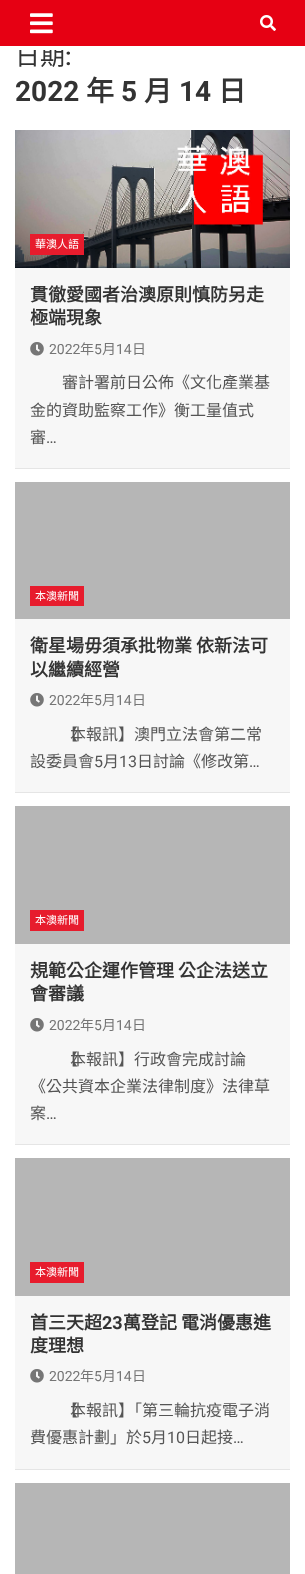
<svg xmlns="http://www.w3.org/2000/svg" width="305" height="1574">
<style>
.a{font:25px Noto Sans CJK TC;fill:#333}
.b{font:500 25px Roboto;fill:#333}
.c{font:bold 28px Roboto;fill:#333}
.d{font:bold 28px Noto Sans CJK TC;fill:#333}
.e{font:11px Noto Sans CJK TC;fill:#fff}
.f{font:bold 18px Noto Sans CJK TC;fill:#333}
.g{font:14px Roboto;fill:#757575}
.h{font:14px Noto Sans CJK TC;fill:#757575}
.i{font:16px Noto Sans CJK TC;fill:#555}
.j{font:16px Roboto;fill:#555}
.k{font:bold 18px Roboto;fill:#333}
</style>
<rect width="100%" height="100%" fill="#fff"/>
<path fill="#0000001a" filter="blur(0.5px)" d="M15 131h275v338H15z"/>
<path fill="#f7f7f7" d="M15 268h275v200H15z"/>
<image href="3.png" x="15" y="130" width="275" height="138"/>
<path fill="#e71c2d" d="M30 234h54v21H30z"/>
<image href="4.png" x="30" y="342" width="14" height="14"/>
<path fill="#0000001a" filter="blur(0.5px)" d="M15 483h275v310H15z"/>
<path fill="#f7f7f7" d="M15 619h275v173H15z"/>
<path fill="#b6b6b6" d="M15 482h275v137H15z"/>
<path fill="#e71c2d" d="M30 586h54v20H30z"/>
<image href="4.png" x="30" y="693" width="14" height="14"/>
<path fill="#0000001a" filter="blur(0.5px)" d="M15 807h275v338H15z"/>
<path fill="#f7f7f7" d="M15 944h275v200H15z"/>
<path fill="#b6b6b6" d="M15 806h275v138H15z"/>
<path fill="#e71c2d" d="M30 910h54v21H30z"/>
<image href="4.png" x="30" y="1018" width="14" height="14"/>
<path fill="#0000001a" filter="blur(0.5px)" d="M15 1159h275v311H15z"/>
<path fill="#f7f7f7" d="M15 1296h275v173H15z"/>
<path fill="#b6b6b6" d="M15 1158h275v138H15z"/>
<path fill="#e71c2d" d="M30 1262h54v21H30z"/>
<image href="4.png" x="30" y="1369" width="14" height="14"/>
<path fill="#b6b6b6" d="M15 1483h275v91H15z"/>
<text class="a" x="15" y="65">日期</text>
<path fill="#e60013" d="M0 0h305v46H0z"/>
<image href="2.png" x="260" y="15" width="16" height="16"/>
<image href="1.png" x="30" y="13" width="23" height="21"/>
<path fill="#fff" d="M19 46h45v4H19z"/>
<text class="b" x="65" y="65">:</text>
<text class="c" x="15" y="101">2022</text>
<text class="d" x="86" y="101">年</text>
<text class="c" x="121" y="101">5</text>
<text class="d" x="144" y="101">月</text>
<text class="c" x="179" y="101">14</text>
<text class="d" x="218" y="101">日</text>
<text class="e" x="35" y="248">華澳人語</text>
<text class="f" x="30" y="301">貫徹愛國者治澳原則慎防另走</text>
<text class="f" x="30" y="324">極端現象</text>
<text class="g" x="49" y="354">2022</text>
<text class="h" x="80" y="354">年</text>
<text class="g" x="94" y="354">5</text>
<text class="h" x="102" y="354">月</text>
<text class="g" x="116" y="354">14</text>
<text class="h" x="132" y="354">日</text>
<text class="i" x="62" y="388">審計署前日公佈《文化產業基</text>
<text class="i" x="30" y="416">金的資助監察工作》衡工量值式</text>
<text class="i" x="30" y="443">審</text>
<text class="j" x="46" y="443">…</text>
<text class="e" x="35" y="600">本澳新聞</text>
<text class="f" x="30" y="652">衛星場毋須承批物業 依新法可</text>
<text class="f" x="30" y="676">以繼續經營</text>
<text class="g" x="49" y="705">2022</text>
<text class="h" x="80" y="705">年</text>
<text class="g" x="94" y="705">5</text>
<text class="h" x="102" y="705">月</text>
<text class="g" x="116" y="705">14</text>
<text class="h" x="132" y="705">日</text>
<text class="i" x="62" y="740">【</text>
<text class="i" x="70" y="740">本報訊】澳門立法會第二常</text>
<text class="i" x="30" y="767">設委員會</text>
<text class="j" x="94" y="767">5</text>
<text class="i" x="103" y="767">月</text>
<text class="j" x="119" y="767">13</text>
<text class="i" x="137" y="767">日討論《修改第</text>
<text class="j" x="249" y="767">…</text>
<text class="e" x="35" y="924">本澳新聞</text>
<text class="f" x="30" y="977">規範公企運作管理 公企法送立</text>
<text class="f" x="30" y="1000">會審議</text>
<text class="g" x="49" y="1030">2022</text>
<text class="h" x="80" y="1030">年</text>
<text class="g" x="94" y="1030">5</text>
<text class="h" x="102" y="1030">月</text>
<text class="g" x="116" y="1030">14</text>
<text class="h" x="132" y="1030">日</text>
<text class="i" x="62" y="1065">【</text>
<text class="i" x="70" y="1065">本報訊】行政會完成討論</text>
<text class="i" x="30" y="1092">《公共資本企業法律制度》法律草</text>
<text class="i" x="30" y="1119">案</text>
<text class="j" x="46" y="1119">…</text>
<text class="e" x="35" y="1276">本澳新聞</text>
<text class="f" x="30" y="1329">首三天超</text>
<text class="k" x="102" y="1329">23</text>
<text class="f" x="123" y="1329">萬登記 電消優惠進</text>
<text class="f" x="30" y="1352">度理想</text>
<text class="g" x="49" y="1381">2022</text>
<text class="h" x="80" y="1381">年</text>
<text class="g" x="94" y="1381">5</text>
<text class="h" x="102" y="1381">月</text>
<text class="g" x="116" y="1381">14</text>
<text class="h" x="132" y="1381">日</text>
<text class="i" x="62" y="1416">【</text>
<text class="i" x="70" y="1416">本報訊】「第三輪抗疫電子消</text>
<text class="i" x="30" y="1443">費優惠計劃」於</text>
<text class="j" x="142" y="1443">5</text>
<text class="i" x="151" y="1443">月</text>
<text class="j" x="167" y="1443">10</text>
<text class="i" x="185" y="1443">日起接</text>
<text class="j" x="233" y="1443">…</text>
</svg>
